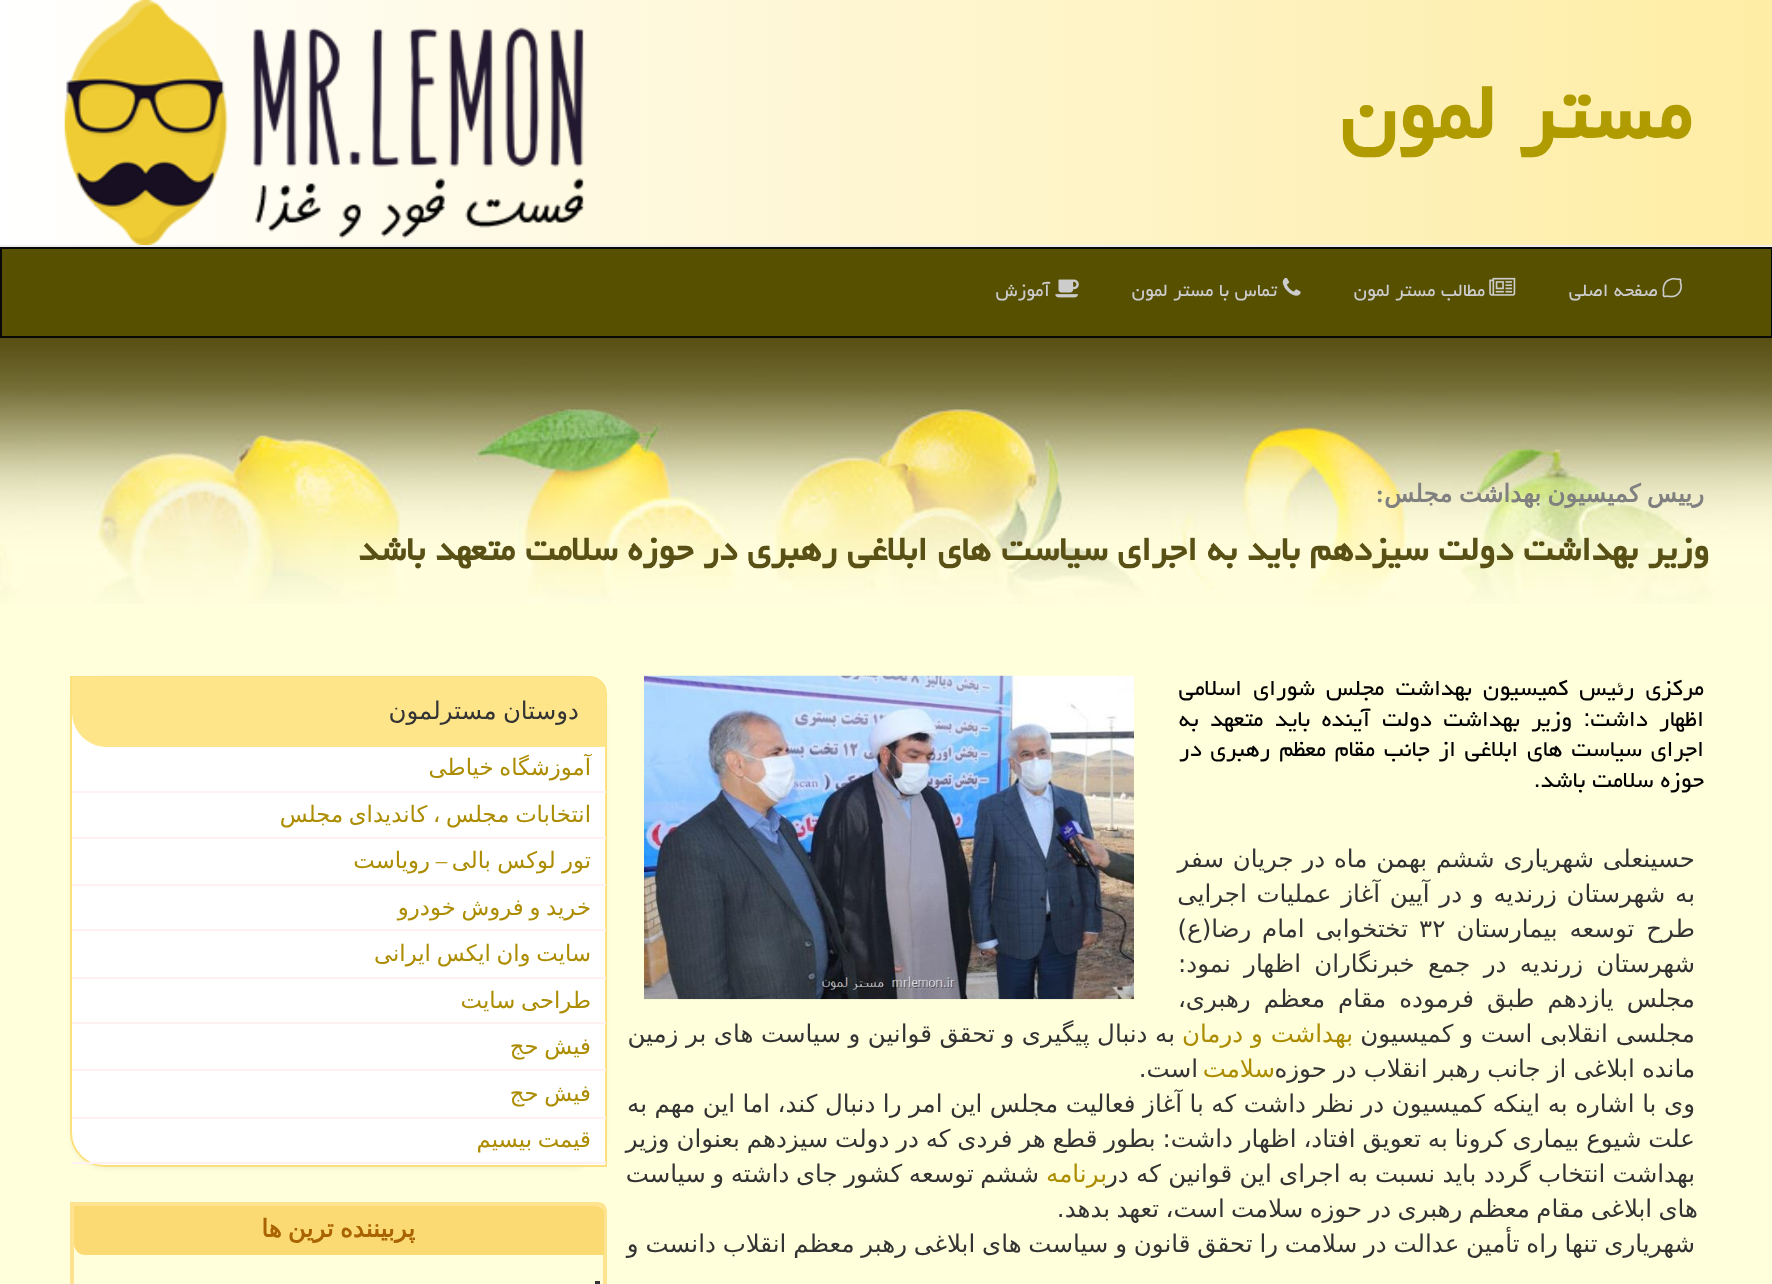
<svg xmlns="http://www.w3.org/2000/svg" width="1772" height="1284">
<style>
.a{font:bold 98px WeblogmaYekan;direction:rtl;fill:#b09c00}
.b{font:22.75px WeblogmaYekan;direction:rtl;fill:#ccc}
.c{font:bold 24.5px DejaVu Sans;direction:rtl;fill:#808080}
.d{font:bold 24.5px Liberation Serif;direction:rtl;fill:#808080}
.e{font:bold 42px WeblogmaYekan;direction:rtl;fill:#585015}
.f{font:28px WeblogmaYekan;direction:rtl;fill:#000}
.g{font:24.5px DejaVu Sans;direction:rtl;fill:#333}
.h{font:24.5px DejaVu Sans;fill:#333}
.i{font:24.5px DejaVu Sans;direction:rtl;fill:#ac8c00}
.j{font:22.75px DejaVu Sans;direction:rtl;fill:#ac8c00}
.k{font:22.75px Liberation Serif;direction:rtl;fill:#ac8c00}
.l{font:bold 24.5px DejaVu Sans;direction:rtl;fill:#a96300}
</style>
<defs>
<linearGradient id="g1" gradientUnits="userSpaceOnUse" x1="0" y1="123" x2="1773" y2="122"><stop offset="0" stop-color="#fff"/><stop offset="1" stop-color="#feeda4"/></linearGradient>
</defs>
<rect width="100%" height="100%" fill="#ffffdb"/>
<path fill="url(#g1)" d="M0 0h1772v245H0z"/>
<path fill="#eee" d="M0 245h1772v2H0z"/>
<image href="1.png" x="64" y="0" width="520" height="245"/>
<path fill="#575000" stroke="#080808" stroke-width="2" d="M1 248h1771v89H1z"/>
<image href="2.png" x="1662" y="277" width="20" height="21"/>
<image href="3.png" x="1489" y="277" width="27" height="19"/>
<image href="4.png" x="1282" y="277" width="19" height="19"/>
<image href="5.png" x="1055" y="279" width="24" height="19"/>
<image href="6.png" x="0" y="338" width="1772" height="266"/>
<image href="7.png" x="644" y="675" width="490" height="325"/>
<rect fill="#0000000d" filter="blur(2px)" x="70" y="677" width="537" height="492" rx="35"/>
<path fill="#fff" stroke="#fee17e" stroke-width="2" d="M71 677h518c9.5 0 17 7.5 17 17v472h-501c-19 0-34-15-34-34z"/>
<path fill="#ffe58a" d="M72 677h516c10 0 18 8 18 18v52h-499c-19.5 0-35-15.5-35-35z"/>
<path fill="#fff1f1" d="M72 791h534v2H72z"/>
<path fill="#fff1f1" d="M72 837h534v2H72z"/>
<path fill="#fff1f1" d="M72 884h534v2H72z"/>
<path fill="#fff1f1" d="M72 929h534v2H72z"/>
<path fill="#fff1f1" d="M72 977h534v2H72z"/>
<path fill="#fff1f1" d="M72 1022h534v2H72z"/>
<path fill="#fff1f1" d="M72 1069h534v2H72z"/>
<path fill="#fff1f1" d="M72 1117h534v2H72z"/>
<path fill="#fff1f1" d="M72 1162h534v2H72z"/>
<path fill="none" stroke="#ffe390" stroke-width="4" d="M72 1204h526c4 0 7 3 7 7v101h-509c-13.5 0-24-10.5-24-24z"/>
<path fill="#fbd973" d="M74 1206h523c4 0 7 3 7 7v42h-519c-6 0-11-5-11-11z"/>
<path fill="#333" d="M595 1281h5v3H595z"/>
<text class="a" x="1691" y="138">مستر لمون</text>
<text class="b" x="1658" y="296">صفحه اصلی</text>
<text class="b" x="1485" y="296">مطالب مستر لمون</text>
<text class="b" x="1277" y="296">تماس با مستر لمون</text>
<text class="b" x="1050" y="296">آموزش</text>
<text class="c" x="1704" y="502" word-spacing="-1.5">رییس كمیسیون بهداشت مجلس</text>
<text class="d" x="1384" y="502">:</text>
<text class="e" x="1709" y="560">وزیر بهداشت دولت سیزدهم باید به اجرای سیاست های ابلاغی رهبری در حوزه سلامت متعهد باشد</text>
<text class="f" x="1704" y="695" word-spacing="4.5">مرکزی رئیس کمیسیون بهداشت مجلس شورای اسلامی</text>
<text class="f" x="1704" y="726" word-spacing="4.75">اظهار داشت: وزیر بهداشت دولت آینده باید متعهد به</text>
<text class="f" x="1704" y="756" word-spacing="2">اجرای سیاست های ابلاغی از جانب مقام معظم رهبری در</text>
<text class="f" x="1704" y="787">حوزه سلامت باشد.</text>
<text class="g" x="1695" y="867" word-spacing="1">حسینعلی شهریاری ششم بهمن ماه در جریان سفر</text>
<text class="g" x="1695" y="902" word-spacing="2">به شهرستان زرندیه و در آیین آغاز عملیات اجرایی</text>
<text class="g" x="1695" y="937" word-spacing="4">طرح توسعه بیمارستان</text>
<text class="h" x="1419" y="937">۳۲</text>
<text class="g" x="1408" y="937" word-spacing="3">تختخوابی امام رضا(ع)</text>
<text class="g" x="1695" y="972" word-spacing="5.5">شهرستان زرندیه در جمع خبرنگاران اظهار نمود:</text>
<text class="g" x="1695" y="1007" word-spacing="5.25">مجلس یازدهم طبق فرموده مقام معظم رهبری،</text>
<text class="g" x="1695" y="1042">مجلسی انقلابی است و کمیسیون</text>
<text class="i" x="1353" y="1042">بهداشت و درمان</text>
<text class="g" x="1175" y="1042" word-spacing="-0.25">به دنبال پیگیری و تحقق قوانین و سیاست های بر زمین</text>
<text class="g" x="1695" y="1077" word-spacing="-0.75">مانده ابلاغی از جانب رهبر انقلاب در حوزه</text>
<text class="i" x="1275" y="1077">سلامت</text>
<text class="g" x="1198" y="1077">است.</text>
<text class="g" x="1695" y="1112" word-spacing="-0.25">وی با اشاره به اینکه کمیسیون در نظر داشت که با آغاز فعالیت مجلس این امر را دنبال کند، اما این مهم به</text>
<text class="g" x="1695" y="1147" word-spacing="-1">علت شیوع بیماری کرونا به تعویق افتاد، اظهار داشت: بطور قطع هر فردی که در دولت سیزدهم بعنوان وزیر</text>
<text class="g" x="1695" y="1182" word-spacing="-0.5">بهداشت انتخاب گردد باید نسبت به اجرای این قوانین که در</text>
<text class="i" x="1107" y="1182">برنامه</text>
<text class="g" x="1039" y="1182" word-spacing="-1.25">ششم توسعه کشور جای داشته و سیاست</text>
<text class="g" x="1698" y="1217" word-spacing="-1.5">های ابلاغی مقام معظم رهبری در حوزه سلامت است، تعهد بدهد.</text>
<text class="g" x="1695" y="1252" word-spacing="-1">شهریاری تنها راه تأمین عدالت در سلامت را تحقق قانون و سیاست های ابلاغی رهبر معظم انقلاب دانست و</text>
<text class="g" x="579" y="719" word-spacing="-1.5">دوستان مسترلمون</text>
<text class="j" x="591" y="775" word-spacing="-1.5">آموزشگاه خیاطی</text>
<text class="j" x="591" y="822" word-spacing="-1.5">انتخابات مجلس ، کاندیدای مجلس</text>
<text class="j" x="591" y="868" word-spacing="-1">تور لوکس بالی</text>
<text class="k" x="447" y="868">–</text>
<text class="j" x="430" y="868">رویاست</text>
<text class="j" x="591" y="915" word-spacing="-1.5">خرید و فروش خودرو</text>
<text class="j" x="591" y="961" word-spacing="-1.5">سایت وان ایکس ایرانی</text>
<text class="j" x="591" y="1008" word-spacing="-1.5">طراحی سایت</text>
<text class="j" x="591" y="1054" word-spacing="-1.5">فیش حج</text>
<text class="j" x="591" y="1101" word-spacing="-1.5">فیش حج</text>
<text class="j" x="591" y="1147" word-spacing="-1.5">قیمت بیسیم</text>
<text class="l" x="415" y="1237" word-spacing="-1.5">پربیننده ترین ها</text>
</svg>
